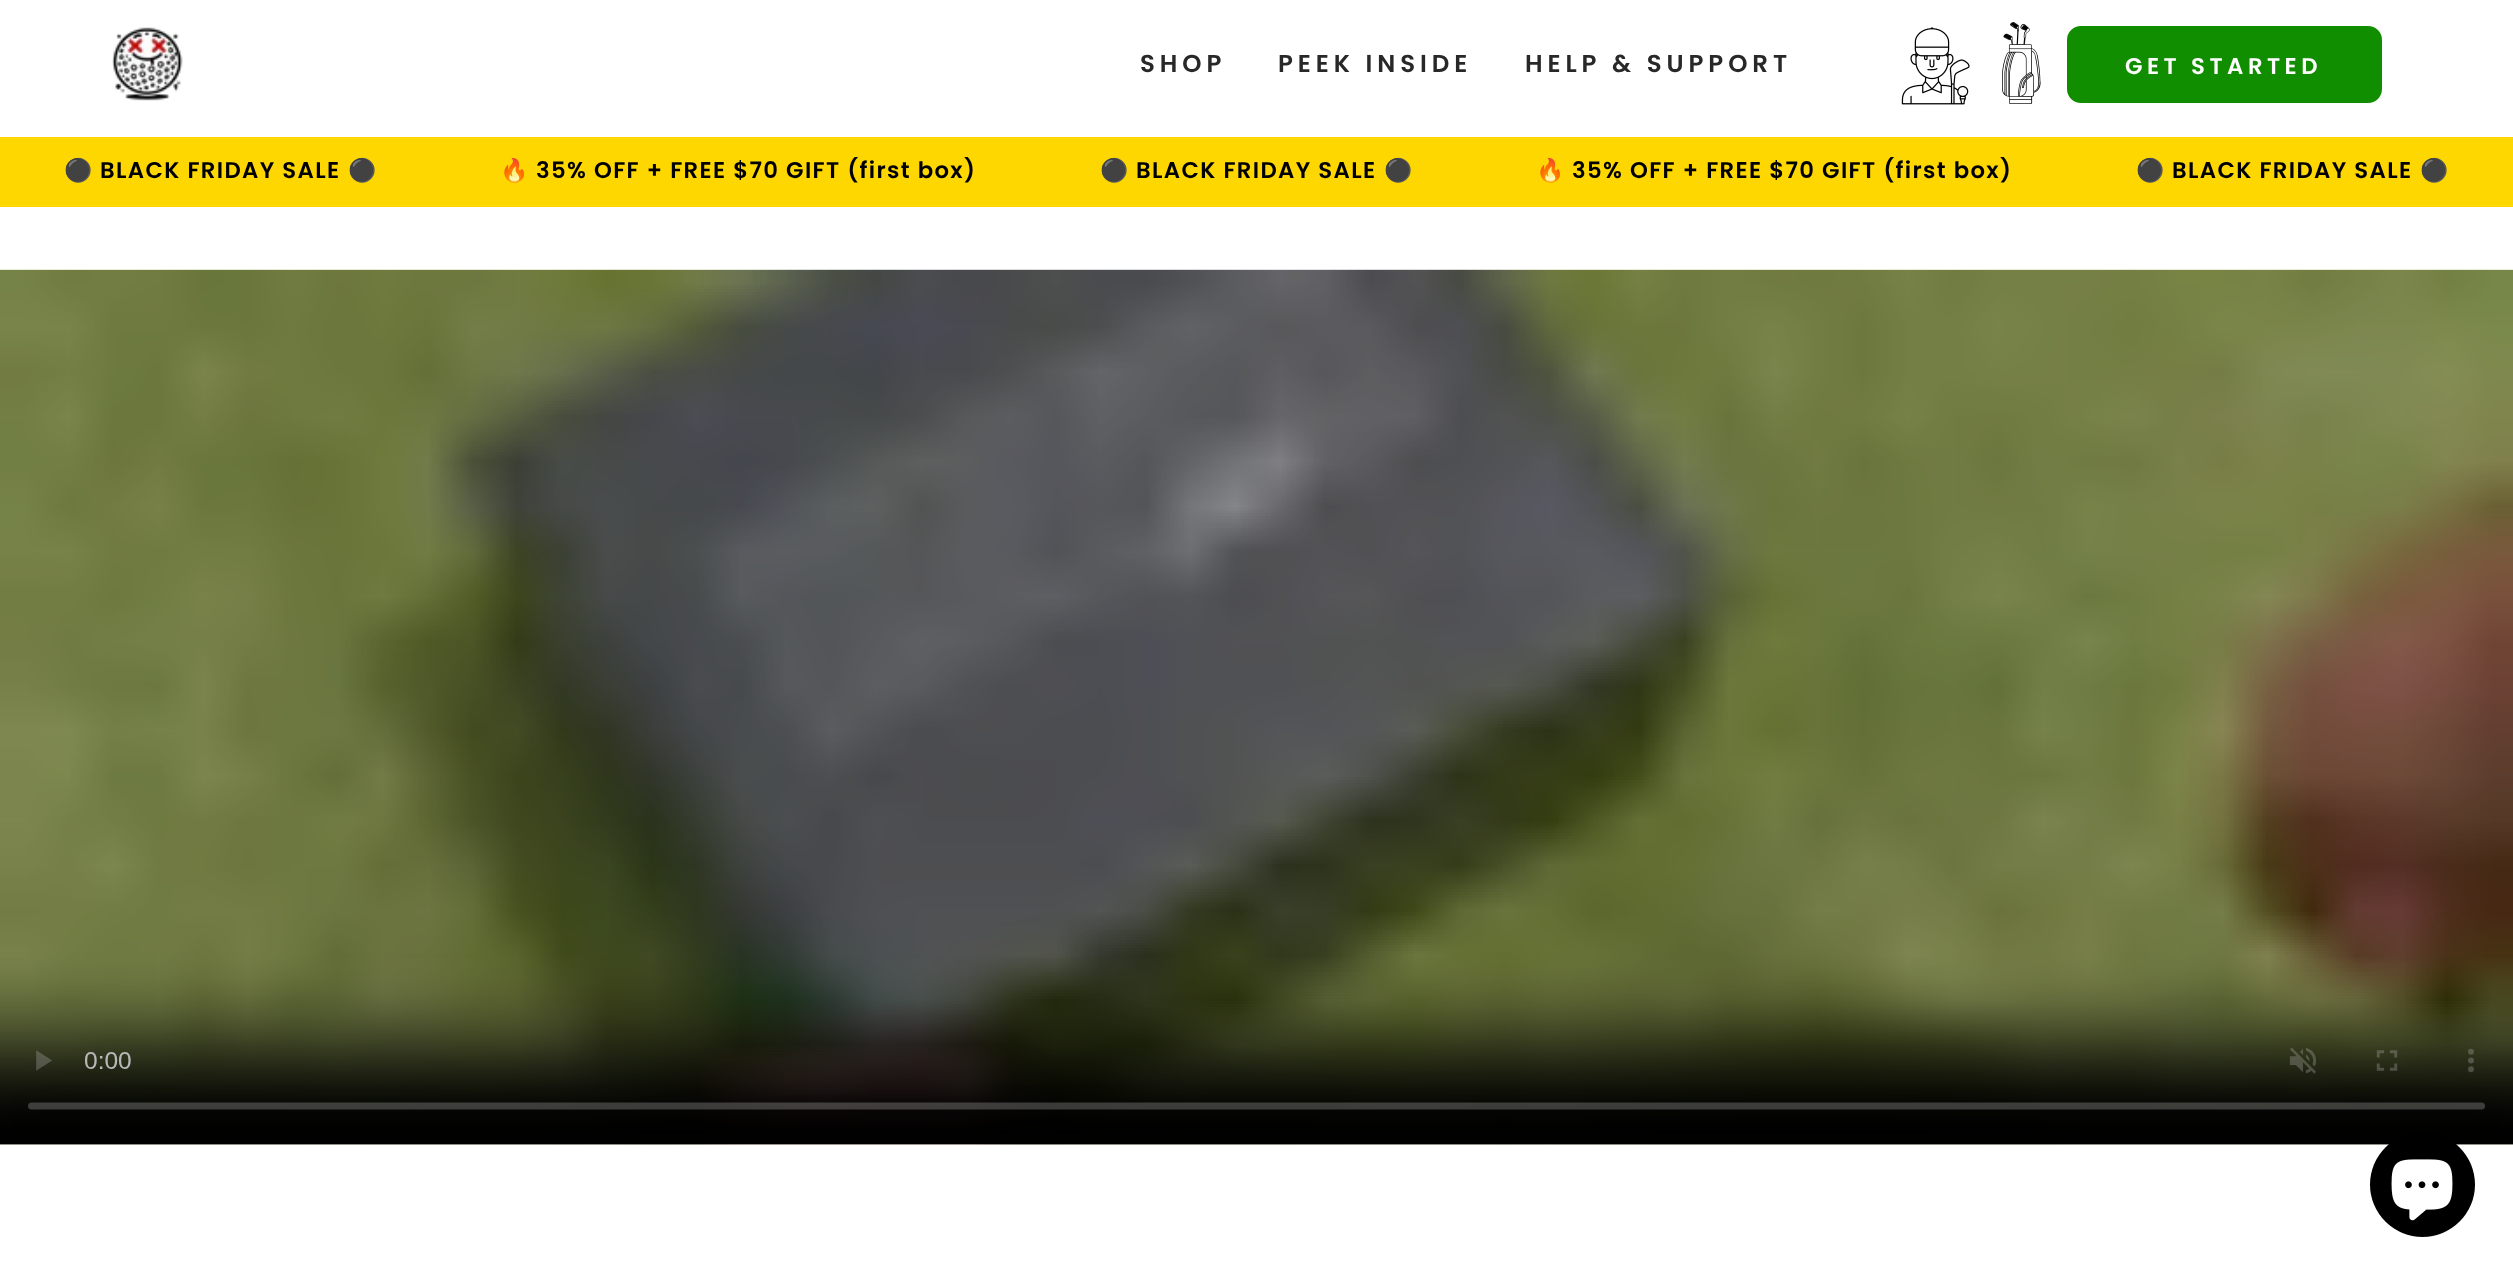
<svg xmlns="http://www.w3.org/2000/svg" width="2513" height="1274">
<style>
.a{font:600 24.5px Poppins;letter-spacing:4.9px;fill:#282828}
.b{font:600 22.75px Poppins;letter-spacing:4.5px;fill:#fff}
.c{font:bold 22.75px Noto Color Emoji;letter-spacing:1.35px;fill:#000}
.d{font:600 22.75px Poppins;letter-spacing:1.35px;fill:#000}
</style>
<rect width="100%" height="100%" fill="#fff"/>
<path fill="#b8b8b8" d="M0 1144h2513v1H0z"/>
<image href="1.png" x="112" y="27" width="71" height="74"/>
<image href="2.png" x="1901" y="27" width="69" height="78"/>
<image href="3.png" x="2002" y="22" width="39" height="82"/>
<rect fill="#118e00" stroke="#118e00" stroke-width="7" x="2070.5" y="29.5" width="308" height="70" rx="10.5"/>
<path fill="#fed700" d="M0 137h2513v70H0z"/>
<image href="4.png" x="0" y="269" width="2513" height="876"/>
<circle fill="#000" cx="2422.5" cy="1184.5" r="52.5"/>
<image href="5.png" x="2391" y="1159" width="62" height="62"/>
<text class="a" x="1140" y="72">SHOP</text>
<text class="a" x="1278" y="72">PEEK INSIDE</text>
<text class="a" x="1525" y="72">HELP &amp; SUPPORT</text>
<text class="b" x="2125" y="74">GET STARTED</text>
<text class="c" x="64" y="178">⚫</text>
<text class="d" x="100" y="178">BLACK FRIDAY SALE</text>
<text class="c" x="348" y="178">⚫</text>
<text class="c" x="500" y="178">🔥</text>
<text class="d" x="536" y="178">35% OFF + FREE $70 GIFT (first box)</text>
<text class="c" x="1100" y="178">⚫</text>
<text class="d" x="1136" y="178">BLACK FRIDAY SALE</text>
<text class="c" x="1384" y="178">⚫</text>
<text class="c" x="1536" y="178">🔥</text>
<text class="d" x="1572" y="178">35% OFF + FREE $70 GIFT (first box)</text>
<text class="c" x="2136" y="178">⚫</text>
<text class="d" x="2172" y="178">BLACK FRIDAY SALE</text>
<text class="c" x="2420" y="178">⚫</text>
</svg>
